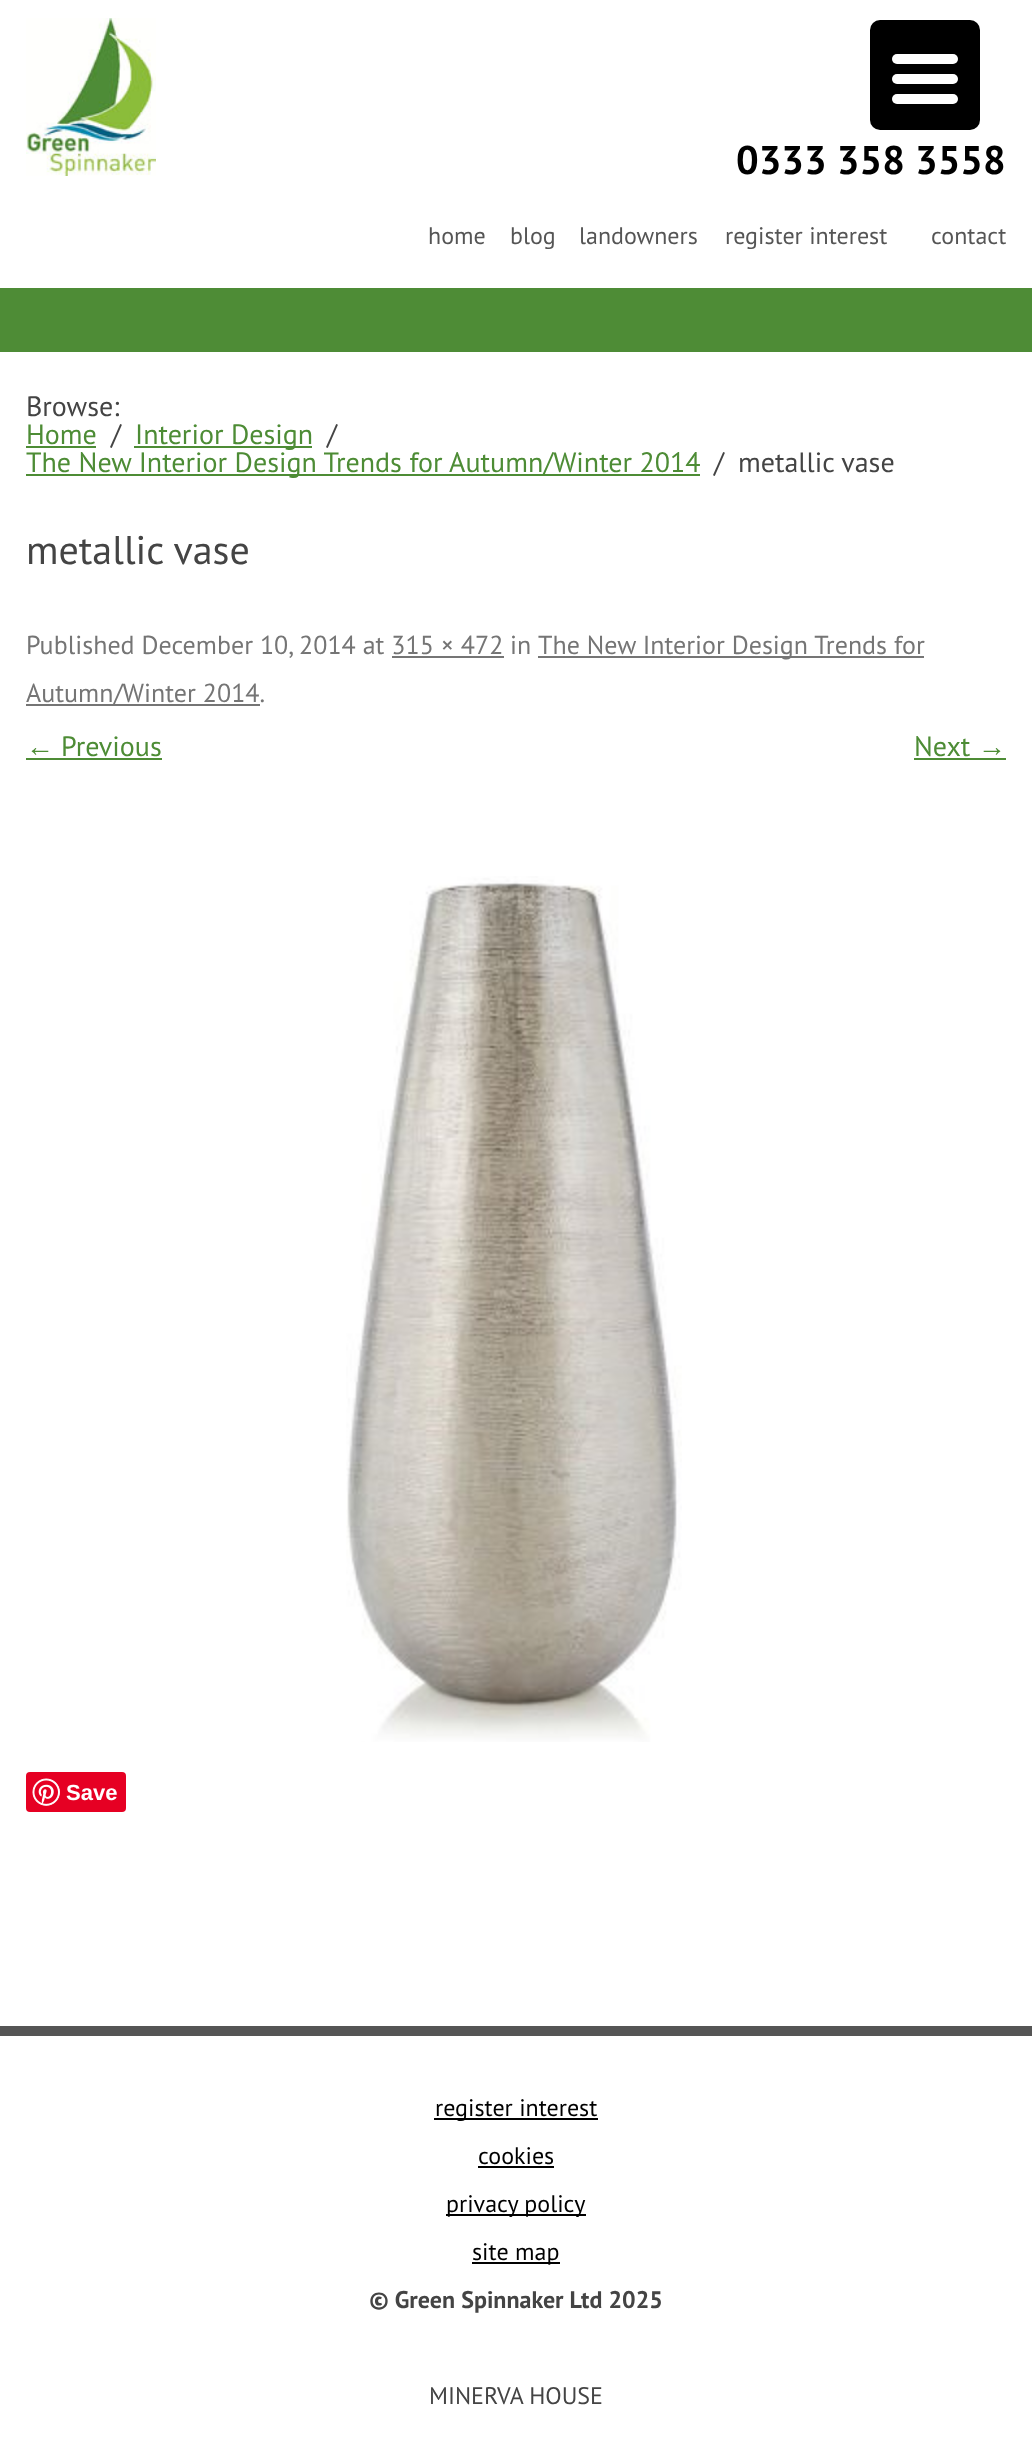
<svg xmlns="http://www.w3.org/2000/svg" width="1032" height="2440">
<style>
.a{font:bold 40px PT Sans;fill:#000}
.b{font:24px PT Sans;fill:#555}
.c{font:28px PT Sans;fill:#444}
.d{font:28px PT Sans;fill:#4d8c35}
.e{font:40px PT Sans;fill:#444}
.f{font:26px PT Sans;fill:#757575}
.g{font:28px Liberation Sans;fill:#4d8c35}
.h{font:bold 22px Liberation Sans;fill:#fff}
.i{font:24px PT Sans;fill:#000}
.j{font:bold 24px PT Sans;fill:#444}
.k{font:24px PT Sans;fill:#444}
</style>
<rect width="100%" height="100%" fill="#fff"/>
<rect fill="#000" x="870" y="20" width="110" height="110" rx="10"/>
<rect fill="#fff" x="892" y="74" width="66" height="10" rx="5"/>
<rect fill="#fff" x="892" y="54" width="66" height="10" rx="5"/>
<rect fill="#fff" x="892" y="94" width="66" height="10" rx="5"/>
<path fill="#4e8c36" d="M0 288h1032v64H0z"/>
<image href="1.png" x="26" y="18" width="130" height="158"/>
<path fill="#4d8c35" d="M26 446h70v2H26z"/>
<path fill="#4d8c35" d="M134 446h178v2H134z"/>
<path fill="#4d8c35" d="M26 474h674v2H26z"/>
<path fill="#757575" d="M538 656h386v2H538z"/>
<path fill="#757575" d="M392 656h112v2H392z"/>
<path fill="#757575" d="M26 704h234v2H26z"/>
<path fill="#4d8c35" d="M26 758h136v2H26z"/>
<path fill="#4d8c35" d="M914 758h92v2H914z"/>
<image href="2.png" x="346" y="876" width="336" height="866"/>
<rect fill="#e60023" x="26" y="1772" width="100" height="40" rx="4"/>
<image href="3.png" x="32" y="1778" width="28" height="28"/>
<path fill="#555" d="M0 2026h1032v10H0z"/>
<path fill="#000" d="M434 2118h164v2H434z"/>
<path fill="#000" d="M478 2166h76v2H478z"/>
<path fill="#000" d="M446 2214h140v2H446z"/>
<path fill="#000" d="M472 2262h88v2H472z"/>
<text class="a" x="736" y="174">0333 358 3558</text>
<text class="b" x="428" y="244">home</text>
<text class="b" x="510" y="244">blog</text>
<text class="b" x="579" y="244">landowners</text>
<text class="b" x="725" y="244">register interest</text>
<text class="b" x="931" y="244">contact</text>
<text class="c" x="26" y="416">Browse:</text>
<text class="d" x="26" y="444">Home</text>
<text class="c" x="111" y="444">/</text>
<text class="d" x="135" y="444">Interior Design</text>
<text class="c" x="327" y="444">/</text>
<text class="d" x="26" y="472">The New Interior Design Trends for Autumn/Winter 2014</text>
<text class="c" x="714" y="472">/</text>
<text class="c" x="738" y="472">metallic vase</text>
<text class="e" x="26" y="564">metallic vase</text>
<text class="f" x="26" y="654">Published December 10, 2014 at 315 × 472</text>
<text class="f" x="510" y="654">in</text>
<text class="f" x="538" y="654">The New Interior Design Trends for</text>
<text class="f" x="26" y="702">Autumn/Winter 2014.</text>
<text class="g" x="26" y="756">←</text>
<text class="d" x="61" y="756">Previous</text>
<text class="d" x="914" y="756">Next</text>
<text class="g" x="978" y="756">→</text>
<text class="h" x="66" y="1800">Save</text>
<text class="i" x="435" y="2116">register interest</text>
<text class="i" x="478" y="2164">cookies</text>
<text class="i" x="446" y="2212">privacy policy</text>
<text class="i" x="472" y="2260">site map</text>
<text class="j" x="369" y="2308">© Green Spinnaker Ltd 2025</text>
<text class="k" x="429" y="2404">MINERVA HOUSE</text>
</svg>
